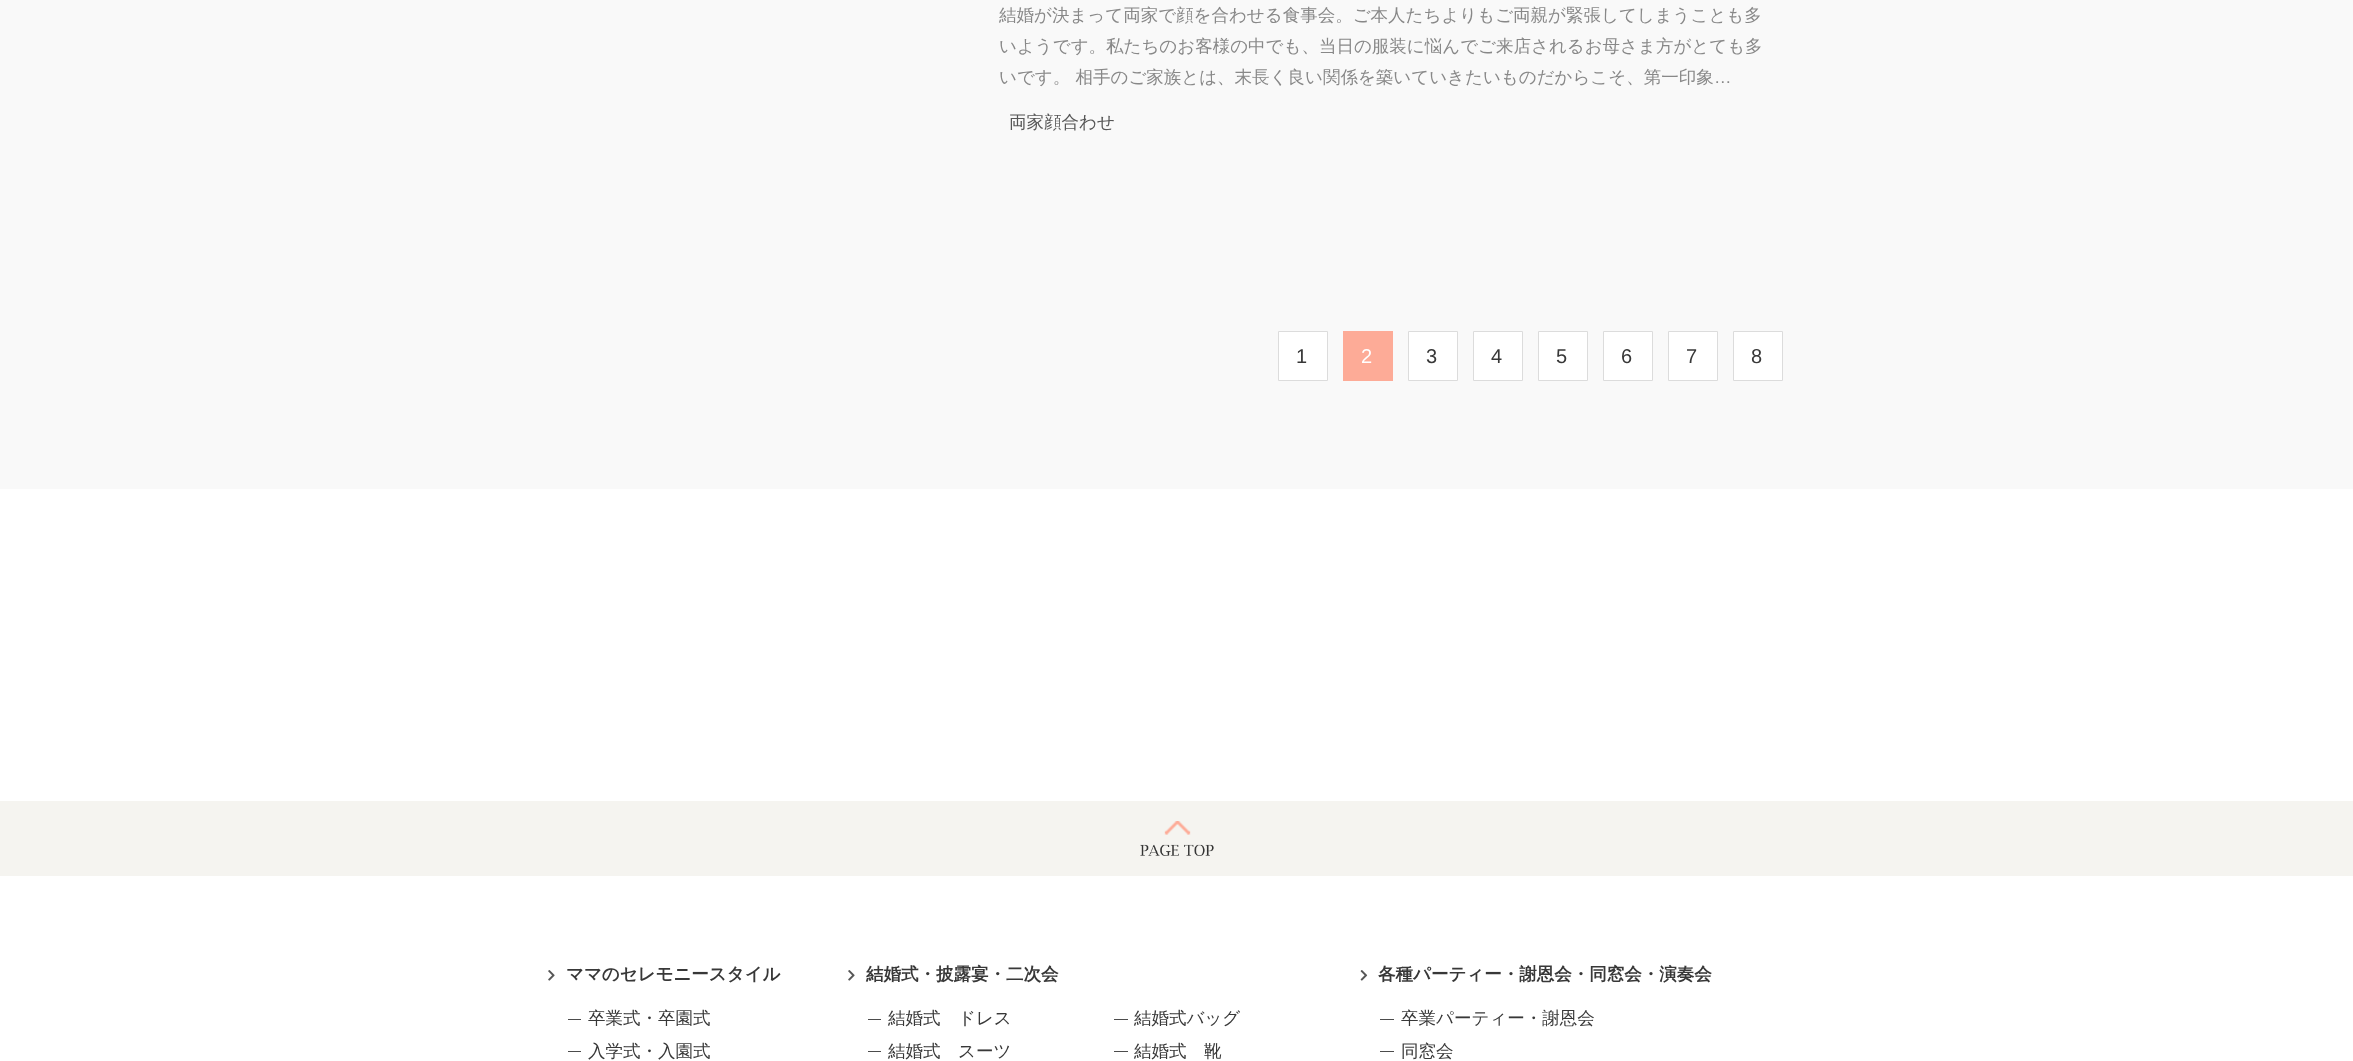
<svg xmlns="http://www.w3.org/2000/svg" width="2353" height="1061">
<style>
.a{font:500 17.5px WenQuanYi Zen Hei;fill:#888}
.b{font:17.5px Liberation Sans;fill:#888}
.c{font:500 17.5px WenQuanYi Zen Hei;fill:#565656}
.d{font:20px Liberation Sans;fill:#383838}
.e{font:20px Liberation Sans;fill:#fff}
.f{font:bold 17.5px WenQuanYi Zen Hei;fill:#383838}
.g{font:500 17.5px WenQuanYi Zen Hei;fill:#383838}
</style>
<rect width="100%" height="100%" fill="#f9f9f9"/>
<path fill="#fff" stroke="#dcdcdc" d="M1278.5 331.5h49v49H1278.5z"/>
<path fill="#fdab97" d="M1343 331h50v50H1343z"/>
<path fill="#fff" stroke="#dcdcdc" d="M1408.5 331.5h49v49H1408.5z"/>
<path fill="#fff" stroke="#dcdcdc" d="M1473.5 331.5h49v49H1473.5z"/>
<path fill="#fff" stroke="#dcdcdc" d="M1538.5 331.5h49v49H1538.5z"/>
<path fill="#fff" stroke="#dcdcdc" d="M1603.5 331.5h49v49H1603.5z"/>
<path fill="#fff" stroke="#dcdcdc" d="M1668.5 331.5h49v49H1668.5z"/>
<path fill="#fff" stroke="#dcdcdc" d="M1733.5 331.5h49v49H1733.5z"/>
<path fill="#fff" d="M0 489h2353v572H0z"/>
<path fill="#f5f4f0" d="M0 801h2353v75H0z"/>
<image href="1.png" x="1140" y="821" width="74" height="35"/>
<image href="2.png" x="548" y="970" width="7" height="11"/>
<path fill="#4c4c4c" d="M568 1019h13v1H568z"/>
<path fill="#4c4c4c" d="M568 1051h13v1H568z"/>
<image href="2.png" x="848" y="970" width="7" height="11"/>
<path fill="#4c4c4c" d="M868 1019h13v1H868z"/>
<path fill="#4c4c4c" d="M1114 1019h14v1H1114z"/>
<path fill="#4c4c4c" d="M868 1051h13v1H868z"/>
<path fill="#4c4c4c" d="M1114 1051h14v1H1114z"/>
<image href="3.png" x="1360" y="970" width="8" height="11"/>
<path fill="#4c4c4c" d="M1380 1019h14v1H1380z"/>
<path fill="#4c4c4c" d="M1380 1051h14v1H1380z"/>
<text class="a" x="999" y="21">結婚が決まって両家で顔を合わせる食事会。ご本人たちよりもご両親が緊張してしまうことも多</text>
<text class="a" x="999" y="52">いようです。私たちのお客様の中でも、当日の服装に悩んでご来店されるお母さま方がとても多</text>
<text class="a" x="999" y="83">いです。 相手のご家族とは、末長く良い関係を築いていきたいものだからこそ、第一印象</text>
<text class="b" x="1714" y="83">…</text>
<text class="c" x="1009" y="128">両家顔合わせ</text>
<text class="d" x="1296" y="363">1</text>
<text class="e" x="1361" y="363">2</text>
<text class="d" x="1426" y="363">3</text>
<text class="d" x="1491" y="363">4</text>
<text class="d" x="1556" y="363">5</text>
<text class="d" x="1621" y="363">6</text>
<text class="d" x="1686" y="363">7</text>
<text class="d" x="1751" y="363">8</text>
<text class="f" x="566" y="980">ママのセレモニースタイル</text>
<text class="g" x="588" y="1024">卒業式・卒園式</text>
<text class="g" x="588" y="1057">入学式・入園式</text>
<text class="f" x="866" y="980">結婚式・披露宴・二次会</text>
<text class="g" x="888" y="1024">結婚式　ドレス</text>
<text class="g" x="1134" y="1024">結婚式バッグ</text>
<text class="g" x="888" y="1057">結婚式　スーツ</text>
<text class="g" x="1134" y="1057">結婚式　靴</text>
<text class="f" x="1378" y="980">各種パーティー・謝恩会・同窓会・演奏会</text>
<text class="g" x="1401" y="1024">卒業パーティー・謝恩会</text>
<text class="g" x="1401" y="1057">同窓会</text>
</svg>
